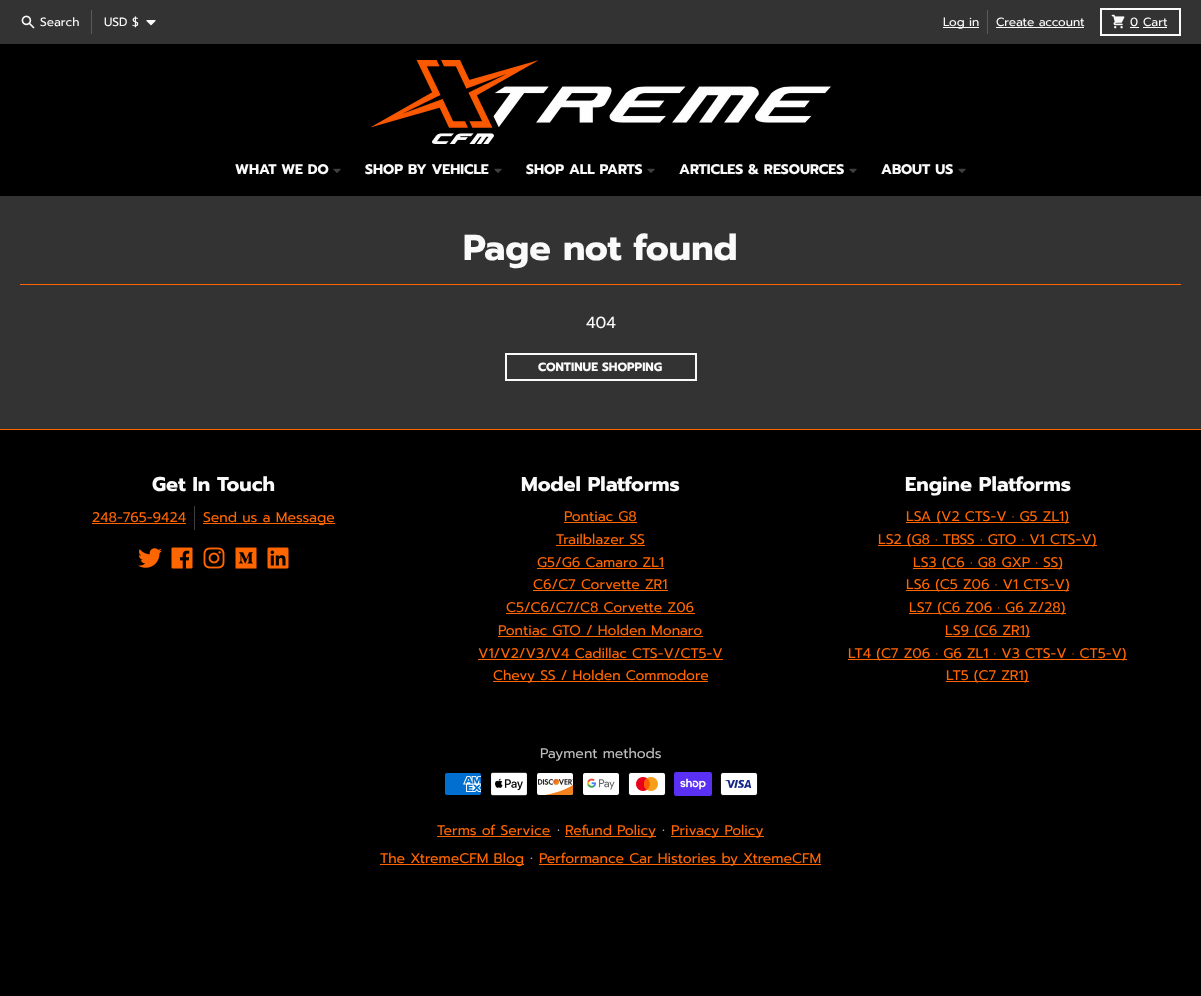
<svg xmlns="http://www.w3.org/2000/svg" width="1201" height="996">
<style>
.a{font:12px Prompt;fill:#fafafa}
.b{font:bold 14px Prompt;fill:#fafafa}
.c{font:bold 36px Prompt;fill:#fafafa}
.d{font:16px Prompt;fill:#fafafa}
.e{font:bold 12px Prompt;fill:#fafafa}
.f{font:bold 20px Prompt;fill:#fafafa}
.g{font:14px Prompt;fill:#f60}
.h{font:14px Prompt;fill:#bcbcbc}
.i{font:16px Prompt;fill:#bcbcbc}
</style>
<rect width="100%" height="100%" fill="#000"/>
<path fill="#333" d="M0 0h1201v44H0z"/>
<image href="1.png" x="21" y="15" width="14" height="14"/>
<path fill="#5b5b5b" d="M91 10h1v24H91z"/>
<image href="2.png" x="146" y="20" width="10" height="6"/>
<path fill="#fafafa" d="M943 27h36v1H943z"/>
<path fill="#5b5b5b" d="M987 10h1v24H987z"/>
<path fill="#fafafa" d="M996 27h88v1H996z"/>
<path fill="none" stroke="#fafafa" stroke-width="2" d="M1101 9h79v26H1101z"/>
<image href="3.png" x="1111" y="14" width="14" height="15"/>
<path fill="#fafafa" d="M1130 27h9v1H1130z"/>
<path fill="#fafafa" d="M1143 27h24v1H1143z"/>
<image href="4.png" x="371" y="60" width="460" height="84"/>
<image href="5.png" x="333" y="168" width="8" height="5"/>
<image href="5.png" x="494" y="168" width="8" height="5"/>
<image href="5.png" x="647" y="168" width="8" height="5"/>
<image href="5.png" x="849" y="168" width="8" height="5"/>
<image href="5.png" x="958" y="168" width="8" height="5"/>
<path fill="#333" d="M0 196h1201v233H0z"/>
<path fill="#f60" d="M0 429h1201v1H0z"/>
<path fill="#f60" d="M20 284h1161v1H20z"/>
<path fill="none" stroke="#fafafa" stroke-width="2" d="M506 354h190v26H506z"/>
<path fill="#f60" d="M92 523h94v1H92z"/>
<path fill="#3f3f3f" d="M194 506h1v24H194z"/>
<path fill="#f60" d="M203 523h132v1H203z"/>
<image href="6.png" x="138" y="548" width="24" height="20"/>
<image href="7.png" x="171" y="547" width="22" height="22"/>
<image href="8.png" x="203" y="547" width="22" height="22"/>
<image href="9.png" x="235" y="547" width="22" height="22"/>
<image href="10.png" x="267" y="547" width="22" height="22"/>
<path fill="#f60" d="M564 522h73v1H564z"/>
<path fill="#f60" d="M556 545h89v1H556z"/>
<path fill="#f60" d="M537 568h127v1H537z"/>
<path fill="#f60" d="M533 590h135v1H533z"/>
<path fill="#f60" d="M506 613h189v1H506z"/>
<path fill="#f60" d="M498 636h205v1H498z"/>
<path fill="#f60" d="M478 659h245v1H478z"/>
<path fill="#f60" d="M493 681h215v1H493z"/>
<path fill="#f60" d="M906 522h163v1H906z"/>
<path fill="#f60" d="M878 545h219v1H878z"/>
<path fill="#f60" d="M913 568h149v1H913z"/>
<path fill="#f60" d="M906 590h163v1H906z"/>
<path fill="#f60" d="M909 613h157v1H909z"/>
<path fill="#f60" d="M945 636h85v1H945z"/>
<path fill="#f60" d="M848 659h279v1H848z"/>
<path fill="#f60" d="M946 681h83v1H946z"/>
<image href="11.png" x="445" y="773" width="36" height="22"/>
<image href="12.png" x="491" y="772" width="36" height="24"/>
<image href="13.png" x="537" y="773" width="37" height="22"/>
<image href="14.png" x="583" y="773" width="36" height="22"/>
<image href="15.png" x="628" y="772" width="38" height="24"/>
<image href="16.png" x="674" y="772" width="38" height="24"/>
<image href="17.png" x="720" y="772" width="38" height="24"/>
<path fill="#f60" d="M437 836h114v1H437z"/>
<path fill="#f60" d="M565 836h91v1H565z"/>
<path fill="#f60" d="M671 836h93v1H671z"/>
<path fill="#f60" d="M380 864h144v1H380z"/>
<path fill="#f60" d="M539 864h282v1H539z"/>
<text class="a" x="40" y="26">Search</text>
<text class="a" x="104" y="26">USD $</text>
<text class="a" x="943" y="26">Log in</text>
<text class="a" x="996" y="26">Create account</text>
<text class="a" x="1130" y="26">0</text>
<text class="a" x="1143" y="26">Cart</text>
<text class="b" x="235" y="174">WHAT WE DO</text>
<text class="b" x="365" y="174">SHOP BY VEHICLE</text>
<text class="b" x="526" y="174">SHOP ALL PARTS</text>
<text class="b" x="679" y="174">ARTICLES &amp; RESOURCES</text>
<text class="b" x="881" y="174">ABOUT US</text>
<text class="c" x="463" y="260">Page not found</text>
<text class="d" x="586" y="328">404</text>
<text class="e" x="538" y="371">CONTINUE SHOPPING</text>
<text class="f" x="152" y="491">Get In Touch</text>
<text class="g" x="92" y="522">248-765-9424</text>
<text class="g" x="203" y="522">Send us a Message</text>
<text class="f" x="521" y="491">Model Platforms</text>
<text class="g" x="564" y="521">Pontiac G8</text>
<text class="g" x="556" y="544">Trailblazer SS</text>
<text class="g" x="537" y="567">G5/G6 Camaro ZL1</text>
<text class="g" x="533" y="589">C6/C7 Corvette ZR1</text>
<text class="g" x="506" y="612">C5/C6/C7/C8 Corvette Z06</text>
<text class="g" x="498" y="635">Pontiac GTO / Holden Monaro</text>
<text class="g" x="478" y="658">V1/V2/V3/V4 Cadillac CTS-V/CT5-V</text>
<text class="g" x="493" y="680">Chevy SS / Holden Commodore</text>
<text class="f" x="905" y="491">Engine Platforms</text>
<text class="g" x="906" y="521">LSA (V2 CTS-V · G5 ZL1)</text>
<text class="g" x="878" y="544">LS2 (G8 · TBSS · GTO · V1 CTS-V)</text>
<text class="g" x="913" y="567">LS3 (C6 · G8 GXP · SS)</text>
<text class="g" x="906" y="589">LS6 (C5 Z06 · V1 CTS-V)</text>
<text class="g" x="909" y="612">LS7 (C6 Z06 · G6 Z/28)</text>
<text class="g" x="945" y="635">LS9 (C6 ZR1)</text>
<text class="g" x="848" y="658">LT4 (C7 Z06 · G6 ZL1 · V3 CTS-V · CT5-V)</text>
<text class="g" x="946" y="680">LT5 (C7 ZR1)</text>
<text class="h" x="540" y="758">Payment methods</text>
<text class="g" x="437" y="835">Terms of Service</text>
<text class="i" x="557" y="835">·</text>
<text class="g" x="565" y="835">Refund Policy</text>
<text class="i" x="662" y="835">·</text>
<text class="g" x="671" y="835">Privacy Policy</text>
<text class="g" x="380" y="863">The XtremeCFM Blog</text>
<text class="i" x="530" y="863">·</text>
<text class="g" x="539" y="863">Performance Car Histories by XtremeCFM</text>
</svg>
